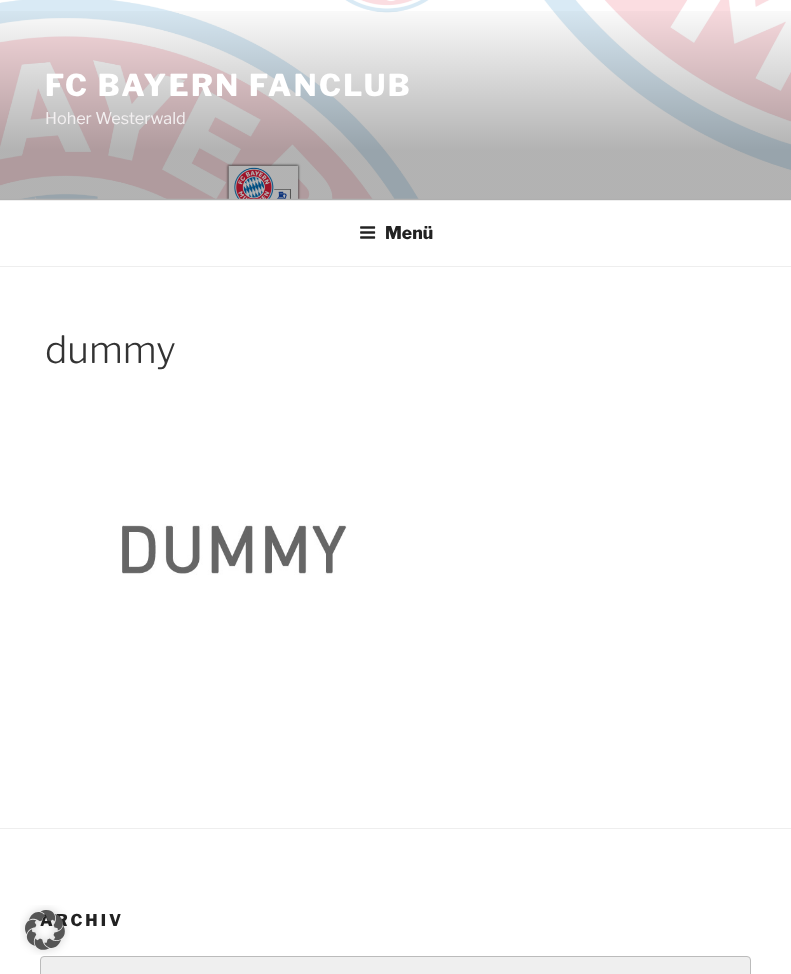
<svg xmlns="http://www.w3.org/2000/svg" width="791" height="974">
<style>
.a{font:100 30px Libre Franklin;letter-spacing:2.4px;fill:#fff}
.b{font:100 16.25px 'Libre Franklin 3';fill:#f3f0f1}
.c{font:100 17.5px Libre Franklin;fill:#222}
.d{font:100 37.5px 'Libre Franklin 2';fill:#333}
.e{font:100 16.25px Libre Franklin;letter-spacing:3px;fill:#222}
</style>
<defs>
<linearGradient id="g1" gradientUnits="userSpaceOnUse" x1="396" y1="0" x2="396" y2="200"><stop offset="0" stop-color="#000" stop-opacity="0"/><stop offset="0.75" stop-color="#000" stop-opacity="0.3"/><stop offset="1" stop-color="#000" stop-opacity="0.3"/></linearGradient>
</defs>
<rect width="100%" height="100%" fill="#fff"/>
<path fill="#fafafa" d="M0 198h791v2H0z"/>
<image href="1.png" x="0" y="0" width="791" height="199"/>
<path fill="url(#g1)" d="M0 11h791v189H0z"/>
<path fill="#eee" d="M0 200h791v1H0z"/>
<path fill="#eee" d="M0 266h791v1H0z"/>
<image href="2.png" x="360" y="226" width="16" height="13"/>
<image href="3.png" x="122" y="524" width="225" height="51"/>
<path fill="#eee" d="M0 828h791v1H0z"/>
<rect fill="#efefef" stroke="#bbb" x="40.5" y="956.5" width="710" height="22" rx="3.5"/>
<text class="a" x="45" y="96">FC BAYERN FANCLUB</text>
<text class="b" x="45" y="124">Hoher Westerwald</text>
<text class="c" x="385" y="239">Menü</text>
<text class="d" x="45" y="363">dummy</text>
<text class="e" x="40" y="926">ARCHIV</text>
<image href="4.png" x="20" y="905" width="50" height="50"/>
</svg>
